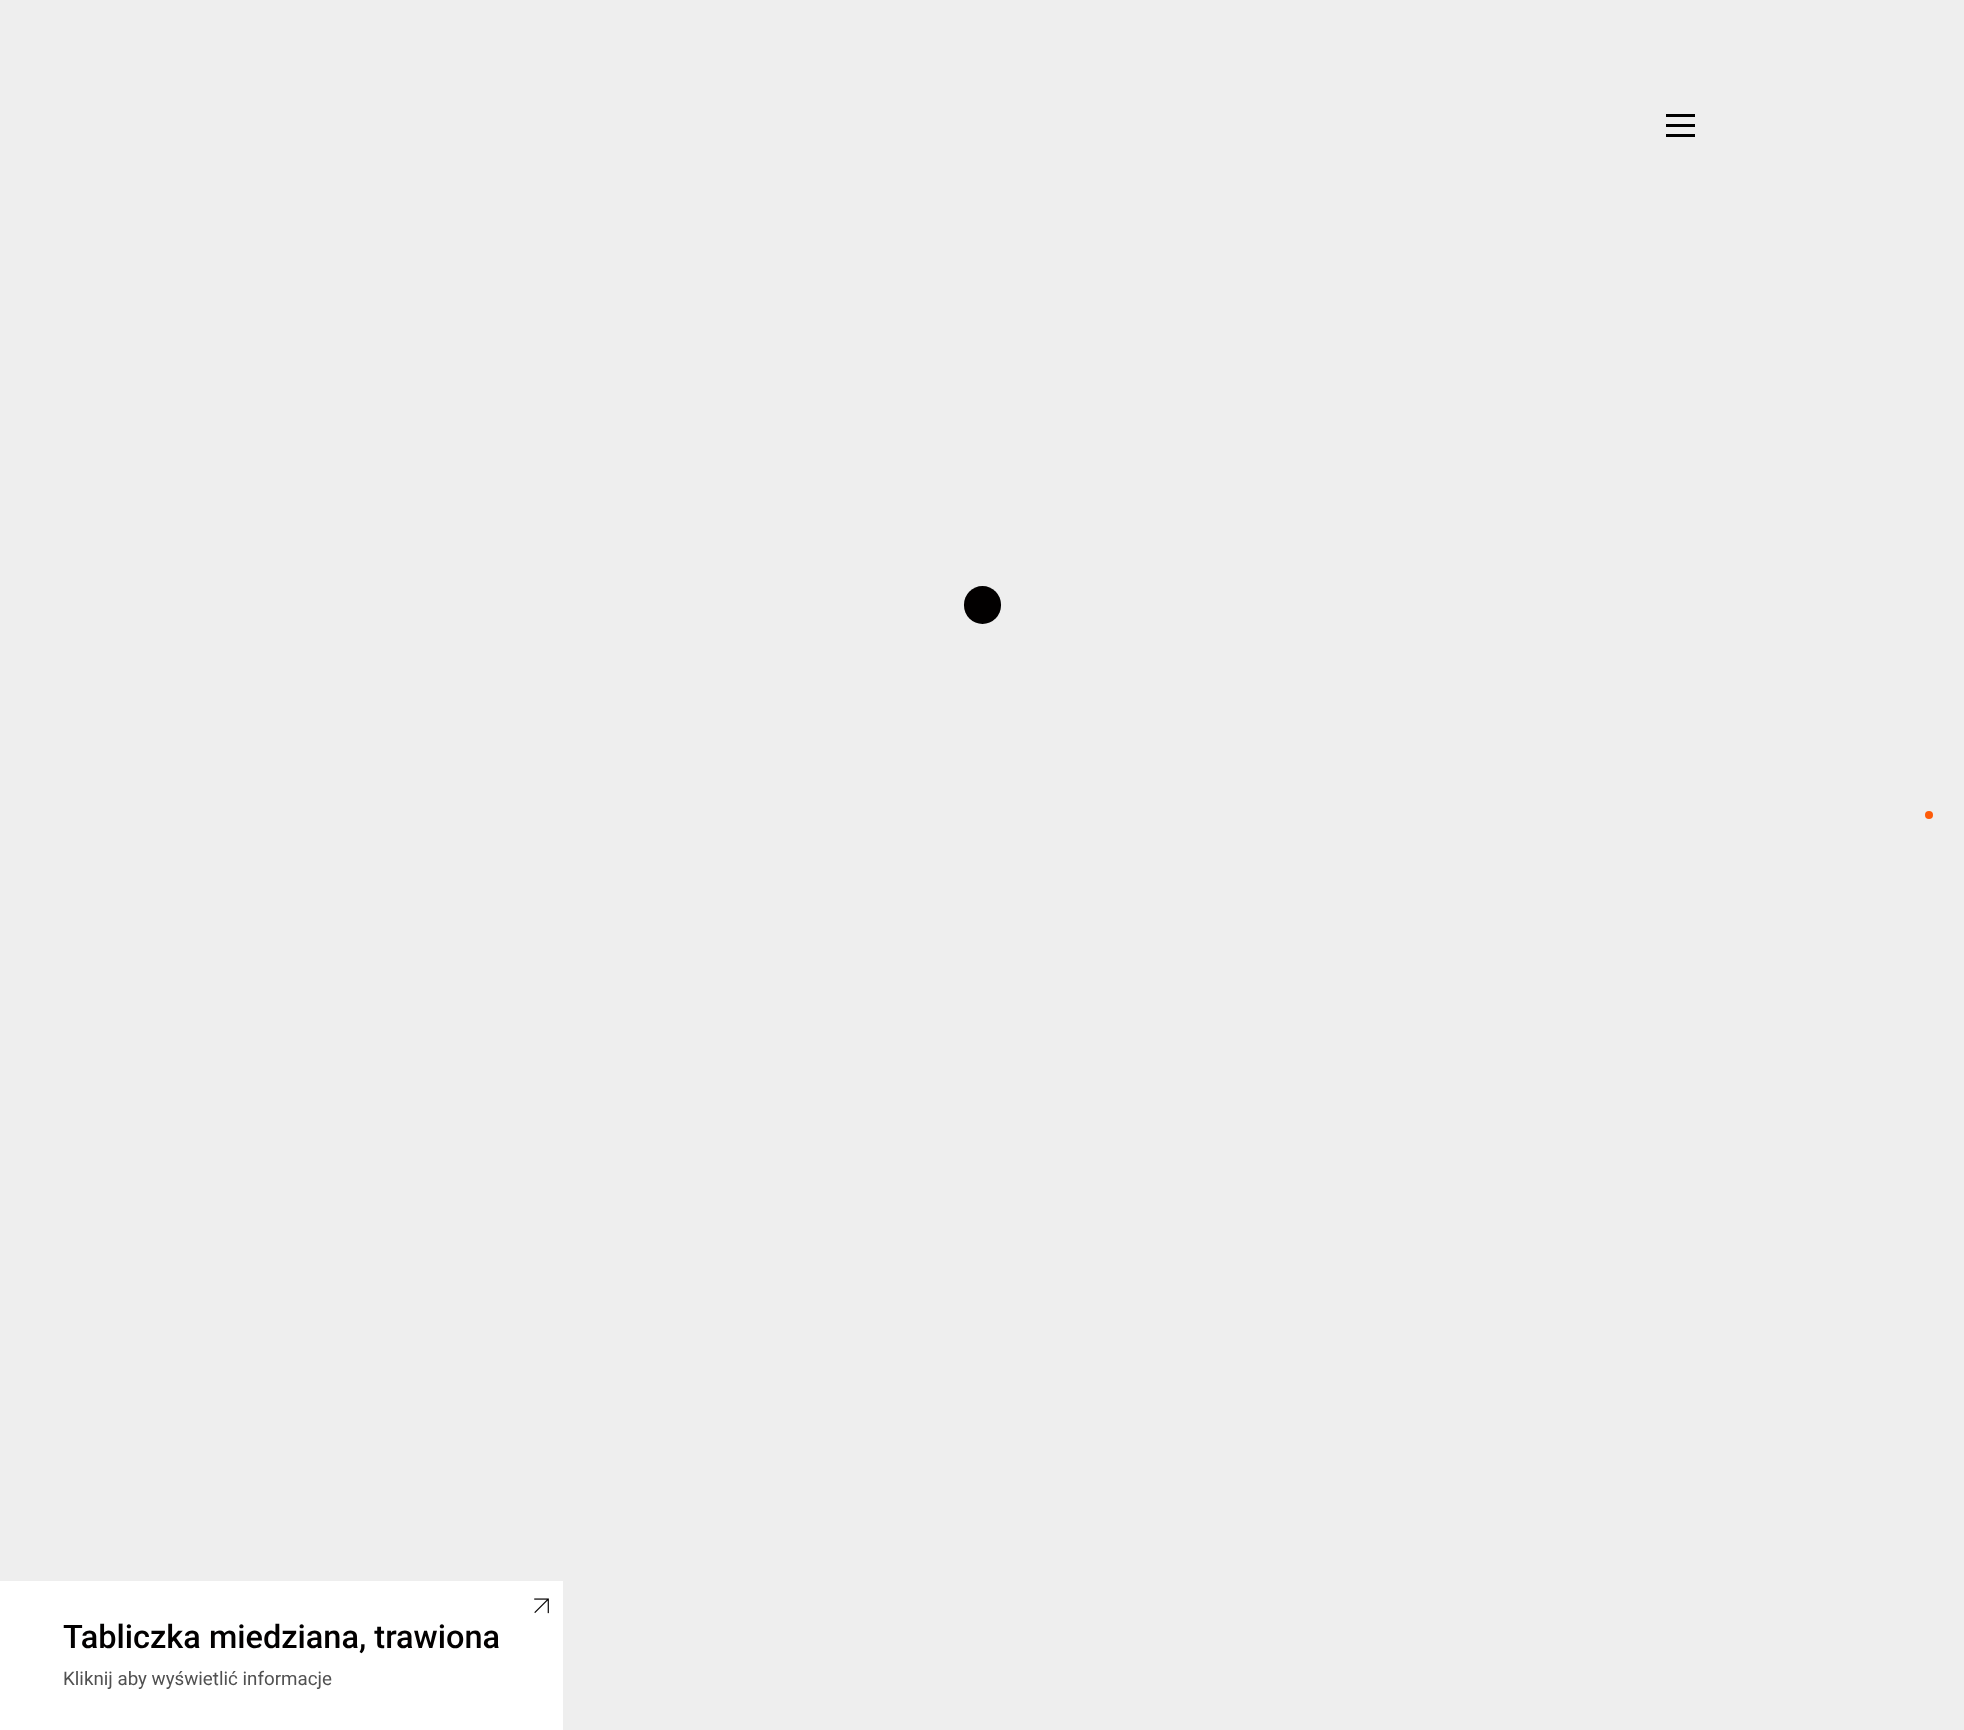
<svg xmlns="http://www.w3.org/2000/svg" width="1964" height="1730">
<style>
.a{font:500 32.5px Roboto;fill:#020000}
.b{font:18.75px Roboto;fill:#515151}
</style>
<rect width="100%" height="100%" fill="#eee"/>
<path fill="#000" d="M1666 114h29v3H1666z"/>
<path fill="#000" d="M1666 124h29v3H1666z"/>
<path fill="#000" d="M1666 134h29v3H1666z"/>
<rect fill="#020000" x="964" y="586" width="37" height="38" rx="18.5"/>
<circle fill="#fd5b09" cx="1929" cy="815" r="4"/>
<path fill="#fff" d="M0 1581h563v149H0z"/>
<image href="1.png" x="534" y="1598" width="15" height="16"/>
<text class="a" x="63" y="1648">Tabliczka miedziana, trawiona</text>
<text class="b" x="63" y="1685">Kliknij aby wyświetlić informacje</text>
</svg>
